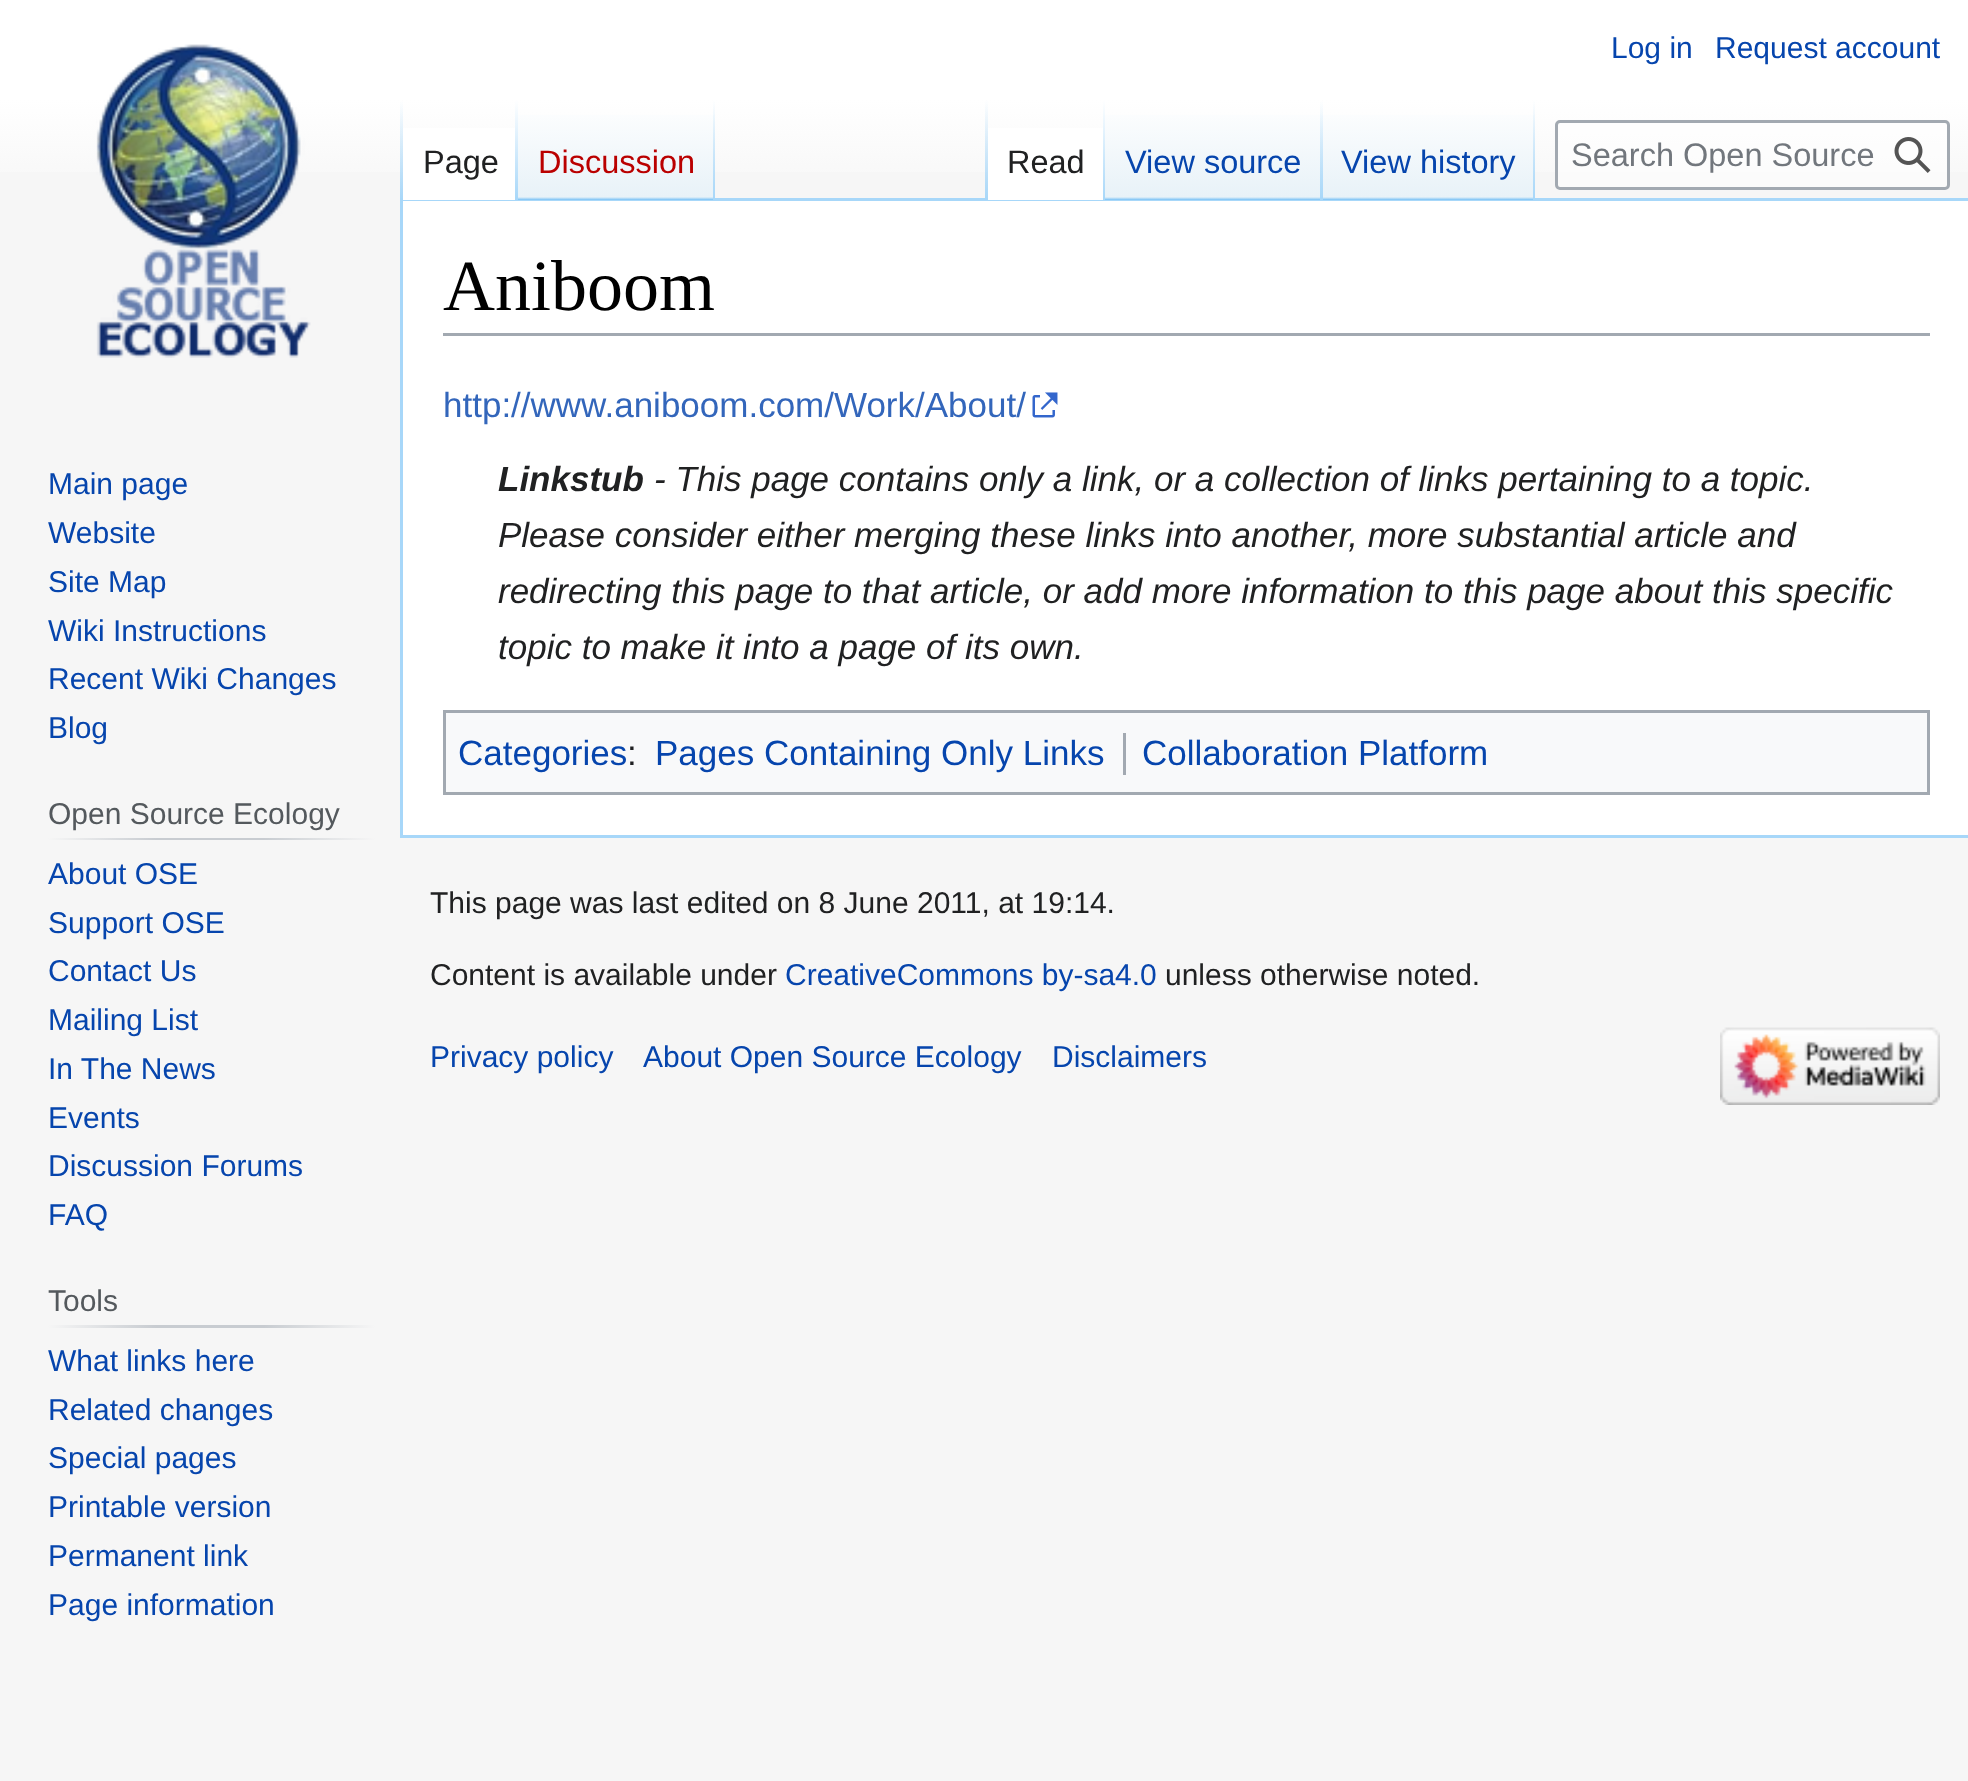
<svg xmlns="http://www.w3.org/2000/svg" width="1968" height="1781">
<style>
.a{font:30px Liberation Sans;fill:#0645ad}
.b{font:32.5px Liberation Sans;fill:#202122}
.c{font:32.5px Liberation Sans;fill:#ba0000}
.d{font:32.5px Liberation Sans;fill:#0645ad}
.e{font:32.5px Liberation Sans;fill:#72777d}
.f{font:30px Liberation Sans;fill:#54595d}
.g{font:72px Liberation Serif;fill:#000}
.h{font:35px Liberation Sans;fill:#36b}
.i{font:italic bold 35px Liberation Sans;fill:#202122}
.j{font:italic 35px Liberation Sans;fill:#202122}
.k{font:35px Liberation Sans;fill:#0645ad}
.l{font:35px Liberation Sans;fill:#202122}
.m{font:30px Liberation Sans;fill:#202122}
</style>
<defs>
<linearGradient id="g1" gradientUnits="userSpaceOnUse" x1="985" y1="0" x2="985" y2="200"><stop offset="0.5" stop-color="#fff"/><stop offset="1" stop-color="#f6f6f6"/></linearGradient>
<linearGradient id="g2" gradientUnits="userSpaceOnUse" x1="401" y1="100" x2="401" y2="200"><stop offset="0" stop-color="#a7d7f9" stop-opacity="0"/><stop offset="1" stop-color="#a7d7f9"/></linearGradient>
<linearGradient id="g3" gradientUnits="userSpaceOnUse" x1="516" y1="100" x2="516" y2="200"><stop offset="0" stop-color="#fff"/><stop offset="1" stop-color="#a7d7f9"/></linearGradient>
<linearGradient id="g4" gradientUnits="userSpaceOnUse" x1="616" y1="200" x2="616" y2="100"><stop offset="0" stop-color="#77c1f6"/><stop offset="0.03" stop-color="#e8f2f8"/><stop offset="1" stop-color="#fff"/></linearGradient>
<linearGradient id="g5" gradientUnits="userSpaceOnUse" x1="714" y1="100" x2="714" y2="200"><stop offset="0" stop-color="#a7d7f9" stop-opacity="0"/><stop offset="1" stop-color="#a7d7f9"/></linearGradient>
<linearGradient id="g6" gradientUnits="userSpaceOnUse" x1="986" y1="100" x2="986" y2="200"><stop offset="0" stop-color="#a7d7f9" stop-opacity="0"/><stop offset="1" stop-color="#a7d7f9"/></linearGradient>
<linearGradient id="g7" gradientUnits="userSpaceOnUse" x1="1104" y1="100" x2="1104" y2="200"><stop offset="0" stop-color="#fff"/><stop offset="1" stop-color="#a7d7f9"/></linearGradient>
<linearGradient id="g8" gradientUnits="userSpaceOnUse" x1="1214" y1="200" x2="1214" y2="100"><stop offset="0" stop-color="#77c1f6"/><stop offset="0.03" stop-color="#e8f2f8"/><stop offset="1" stop-color="#fff"/></linearGradient>
<linearGradient id="g9" gradientUnits="userSpaceOnUse" x1="1321" y1="100" x2="1321" y2="200"><stop offset="0" stop-color="#a7d7f9" stop-opacity="0"/><stop offset="1" stop-color="#a7d7f9"/></linearGradient>
<linearGradient id="g10" gradientUnits="userSpaceOnUse" x1="1429" y1="200" x2="1429" y2="100"><stop offset="0" stop-color="#77c1f6"/><stop offset="0.03" stop-color="#e8f2f8"/><stop offset="1" stop-color="#fff"/></linearGradient>
<linearGradient id="g11" gradientUnits="userSpaceOnUse" x1="1534" y1="100" x2="1534" y2="200"><stop offset="0" stop-color="#a7d7f9" stop-opacity="0"/><stop offset="1" stop-color="#a7d7f9"/></linearGradient>
<linearGradient id="g12" gradientUnits="userSpaceOnUse" x1="48" y1="839" x2="375" y2="839"><stop offset="0" stop-color="#f6f6f6"/><stop offset="0.33" stop-color="#c8ccd1"/><stop offset="0.66" stop-color="#c8ccd1"/><stop offset="1" stop-color="#f6f6f6"/></linearGradient>
<linearGradient id="g13" gradientUnits="userSpaceOnUse" x1="48" y1="1326" x2="375" y2="1326"><stop offset="0" stop-color="#f6f6f6"/><stop offset="0.33" stop-color="#c8ccd1"/><stop offset="0.66" stop-color="#c8ccd1"/><stop offset="1" stop-color="#f6f6f6"/></linearGradient>
</defs>
<rect width="100%" height="100%" fill="#f6f6f6"/>
<path fill="url(#g1)" d="M0 0h1968v172H0z"/>
<path fill="#a7d7f9" d="M400 198h1568v3H400z"/>
<path fill="#a7d7f9" d="M400 835h1568v3H400z"/>
<path fill="#a7d7f9" d="M400 198h3v640H400z"/>
<path fill="url(#g2)" d="M400 100h3v100H400z"/>
<path fill="#fff" d="M403 128h112v72H403z"/>
<path fill="url(#g3)" d="M515 100h3v100H515z"/>
<path fill="url(#g4)" d="M518 115h197v85H518z"/>
<path fill="url(#g5)" d="M713 100h2v100H713z"/>
<path fill="url(#g6)" d="M985 100h3v100H985z"/>
<path fill="#fff" d="M988 128h115v72H988z"/>
<path fill="url(#g7)" d="M1103 100h2v100H1103z"/>
<path fill="url(#g8)" d="M1105 115h218v85H1105z"/>
<path fill="url(#g9)" d="M1320 100h3v100H1320z"/>
<path fill="url(#g10)" d="M1323 115h212v85H1323z"/>
<path fill="url(#g11)" d="M1533 100h2v100H1533z"/>
<rect fill="#ffffff80" stroke="#a2a9b1" stroke-width="3" x="1556.5" y="121.5" width="392" height="67" rx="3.5"/>
<image href="1.png" x="1894" y="137" width="37" height="36"/>
<image href="2.png" x="96" y="44" width="215" height="314"/>
<path fill="url(#g12)" d="M48 838h327v2H48z"/>
<path fill="url(#g13)" d="M48 1325h327v3H48z"/>
<path fill="#fff" d="M403 201h1565v634H403z"/>
<path fill="#a2a9b1" d="M443 333h1487v3H443z"/>
<image href="3.png" x="1032" y="392" width="26" height="26"/>
<path fill="#f8f9fa" stroke="#a2a9b1" stroke-width="3" d="M444.5 711.5h1484v82H444.5z"/>
<path fill="#a2a9b1" d="M1123 733h3v42H1123z"/>
<image href="4.png" x="1720" y="1027" width="220" height="78"/>
<text class="a" x="1611" y="58">Log in</text>
<text class="a" x="1715" y="58">Request account</text>
<text class="b" x="423" y="173">Page</text>
<text class="c" x="538" y="173">Discussion</text>
<text class="b" x="1007" y="173">Read</text>
<text class="d" x="1125" y="173">View source</text>
<text class="d" x="1341" y="173">View history</text>
<text class="e" x="1571" y="166">Search Open Source</text>
<text class="a" x="48" y="494">Main page</text>
<text class="a" x="48" y="543">Website</text>
<text class="a" x="48" y="592">Site Map</text>
<text class="a" x="48" y="641">Wiki Instructions</text>
<text class="a" x="48" y="689">Recent Wiki Changes</text>
<text class="a" x="48" y="738">Blog</text>
<text class="f" x="48" y="824">Open Source Ecology</text>
<text class="a" x="48" y="884">About OSE</text>
<text class="a" x="48" y="933">Support OSE</text>
<text class="a" x="48" y="981">Contact Us</text>
<text class="a" x="48" y="1030">Mailing List</text>
<text class="a" x="48" y="1079">In The News</text>
<text class="a" x="48" y="1128">Events</text>
<text class="a" x="48" y="1176">Discussion Forums</text>
<text class="a" x="48" y="1225">FAQ</text>
<text class="f" x="48" y="1311">Tools</text>
<text class="a" x="48" y="1371">What links here</text>
<text class="a" x="48" y="1420">Related changes</text>
<text class="a" x="48" y="1468">Special pages</text>
<text class="a" x="48" y="1517">Printable version</text>
<text class="a" x="48" y="1566">Permanent link</text>
<text class="a" x="48" y="1615">Page information</text>
<text class="g" x="443" y="310">Aniboom</text>
<text class="h" x="443" y="417">http://www.aniboom.com/Work/About/</text>
<text class="i" x="498" y="491">Linkstub</text>
<text class="j" x="654" y="491">- This page contains only a link, or a collection of links pertaining to a topic.</text>
<text class="j" x="498" y="547">Please consider either merging these links into another, more substantial article and</text>
<text class="j" x="498" y="603">redirecting this page to that article, or add more information to this page about this specific</text>
<text class="j" x="498" y="659">topic to make it into a page of its own.</text>
<text class="k" x="458" y="765">Categories</text>
<text class="l" x="627" y="765">:</text>
<text class="k" x="655" y="765">Pages Containing Only Links</text>
<text class="k" x="1142" y="765">Collaboration Platform</text>
<text class="m" x="430" y="913">This page was last edited on 8 June 2011, at 19:14.</text>
<text class="m" x="430" y="985">Content is available under</text>
<text class="a" x="785" y="985">CreativeCommons by-sa4.0</text>
<text class="m" x="1165" y="985">unless otherwise noted.</text>
<text class="a" x="430" y="1067">Privacy policy</text>
<text class="a" x="643" y="1067">About Open Source Ecology</text>
<text class="a" x="1052" y="1067">Disclaimers</text>
</svg>
